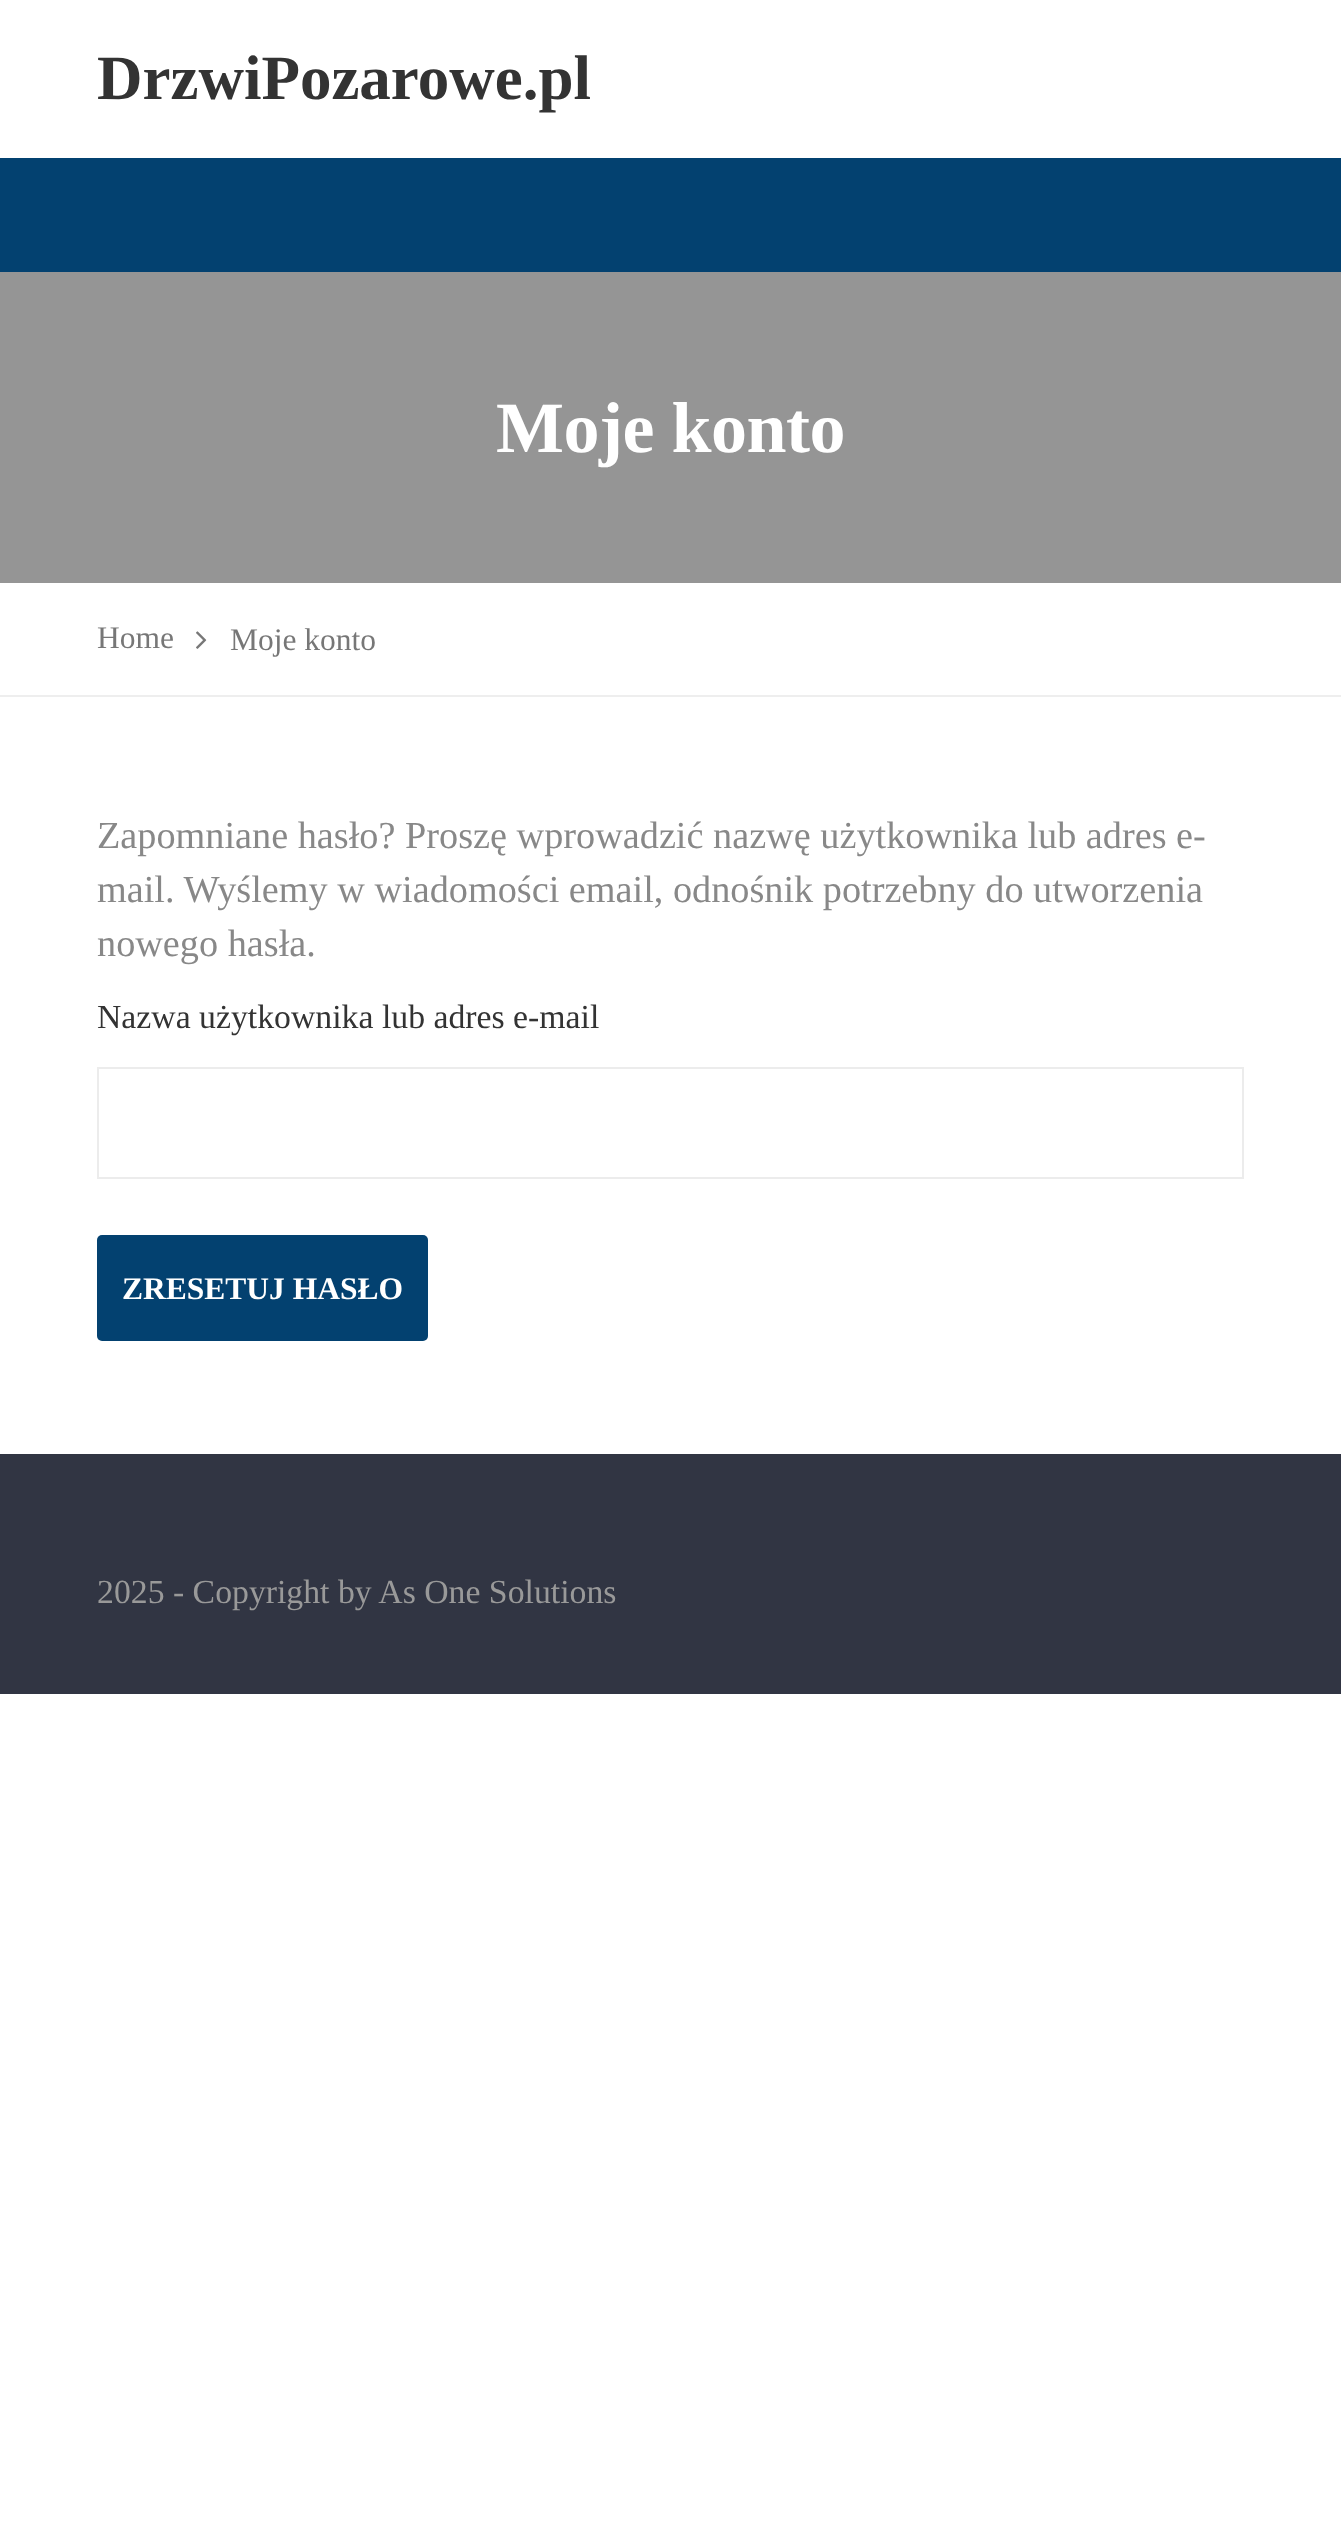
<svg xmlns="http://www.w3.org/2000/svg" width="1341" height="2526">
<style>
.a{font:bold 63px Liberation Serif;fill:#333}
.b{font:bold 72px Liberation Serif;letter-spacing:-0.5px;fill:#fff}
.c{font:31.5px Liberation Serif;fill:#777}
.d{font:38.25px Liberation Serif;fill:#888}
.e{font:33.75px Liberation Serif;fill:#333}
.f{font:bold 31.5px Liberation Serif;fill:#fff}
.g{font:33.75px Liberation Serif;fill:#999}
</style>
<rect width="100%" height="100%" fill="#fff"/>
<path fill="#034170" d="M0 158h1341v114H0z"/>
<path fill="#959595" d="M0 272h1341v311H0z"/>
<path fill="#eee" d="M0 695h1341v2H0z"/>
<image href="1.png" x="196" y="631" width="11" height="18"/>
<path fill="none" stroke="#ececec" stroke-width="2" d="M98 1068h1145v110H98z"/>
<rect fill="#034170" x="97" y="1235" width="331" height="106" rx="5"/>
<path fill="#313543" d="M0 1454h1341v240H0z"/>
<text class="a" x="97" y="99">DrzwiPozarowe.pl</text>
<text class="b" x="496" y="452">Moje konto</text>
<text class="c" x="97" y="648">Home</text>
<text class="c" x="230" y="650">Moje konto</text>
<text class="d" x="97" y="848">Zapomniane hasło? Proszę wprowadzić nazwę użytkownika lub adres e-</text>
<text class="d" x="97" y="902">mail. Wyślemy w wiadomości email, odnośnik potrzebny do utworzenia</text>
<text class="d" x="97" y="956">nowego hasła.</text>
<text class="e" x="97" y="1028">Nazwa użytkownika lub adres e-mail</text>
<text class="f" x="122" y="1299">ZRESETUJ HASŁO</text>
<text class="g" x="97" y="1603">2025 - Copyright by As One Solutions</text>
</svg>
